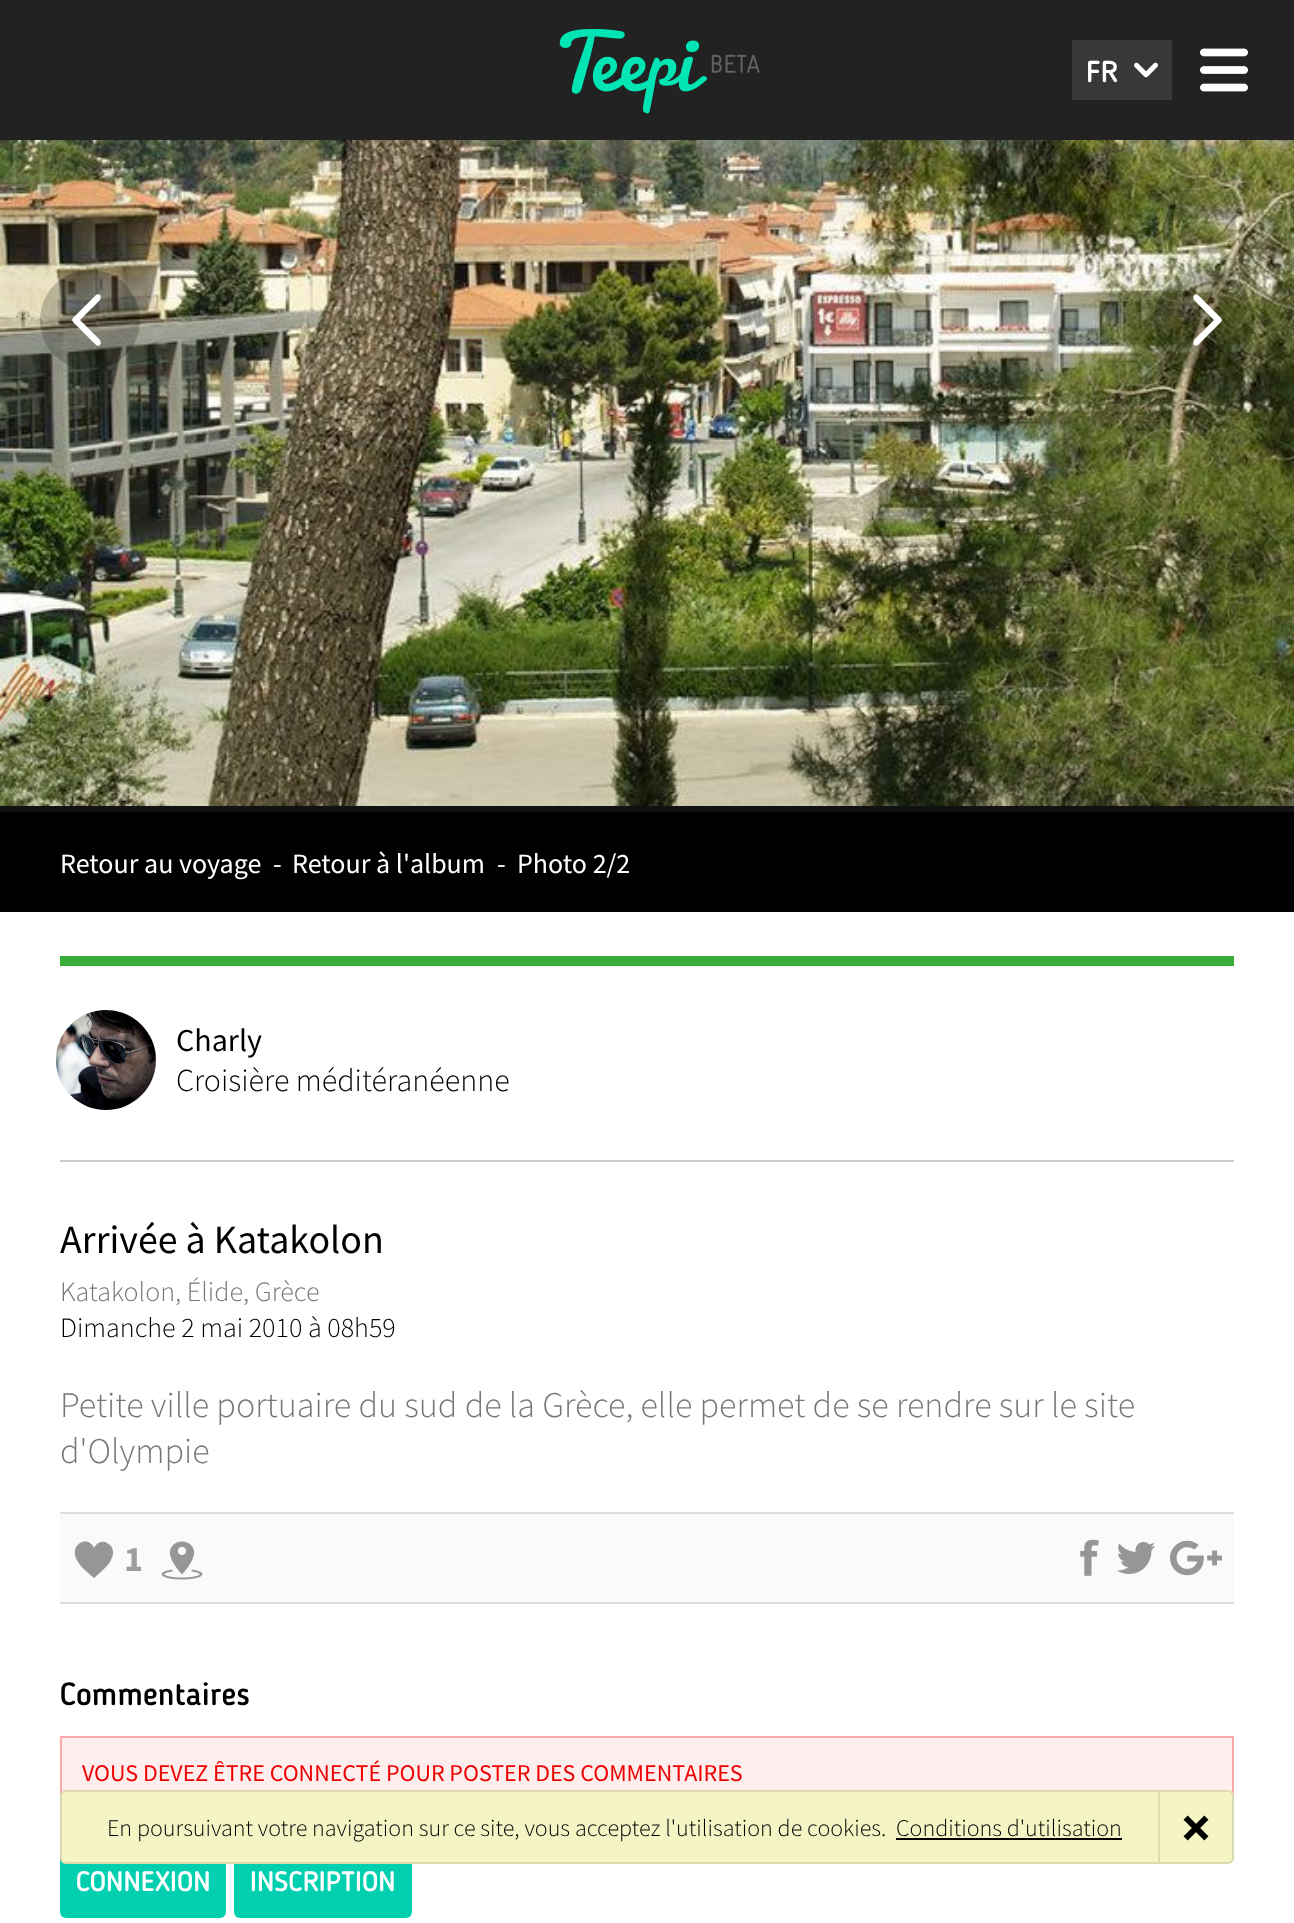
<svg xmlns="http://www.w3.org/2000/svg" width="1294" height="1923">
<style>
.a{font:500 30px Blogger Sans;fill:#fff}
.b{font:28px Source Sans Pro;fill:#fff}
.c{font:32px Source Sans Pro;fill:#000}
.d{font:300 32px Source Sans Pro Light;fill:#000}
.e{font:40px Source Sans Pro;fill:#000}
.f{font:300 28px Source Sans Pro Light;fill:#777}
.g{font:300 28px Source Sans Pro Light;fill:#000}
.h{font:300 36px Source Sans Pro Light;fill:#777}
.i{font:bold 36px Source Sans Pro;fill:#9d9d9d}
.j{font:500 32px Blogger Sans;fill:#000}
.k{font:24px Source Sans Pro;fill:#e00}
.l{font:500 28px Blogger Sans;fill:#fff}
.m{font:300 24px Source Sans Pro Light;fill:#000}
</style>
<rect width="100%" height="100%" fill="#fff"/>
<path fill="#222" d="M0 0h1294v140H0z"/>
<image href="1.png" x="559" y="28" width="201" height="86"/>
<path fill="#383838" d="M1072 40h100v60H1072z"/>
<image href="2.png" x="1134" y="62" width="24" height="16"/>
<image href="3.png" x="1200" y="48" width="48" height="44"/>
<path fill="#111" d="M0 806h1294v6H0z"/>
<image href="4.png" x="0" y="140" width="1294" height="666"/>
<circle fill="#00000033" cx="90" cy="320" r="50"/>
<path fill="#fff" d="M72 320l1-2l23-23c1-1 3-1 4 0c1 1 1 3 0 5l-20 20l20 20c1 2 1 4 0 5c-1 1-3 1-4 0l-23-23z"/>
<circle fill="#00000033" cx="1204" cy="320" r="50"/>
<path fill="#fff" d="M1222 320l-1 2l-23 23c-1 1-3 1-4 0c-1-1-1-3 0-5l20-20l-20-20c-1-2-1-4 0-5c1-1 3-1 4 0l23 23z"/>
<path fill="#000" d="M0 812h1294v100H0z"/>
<path fill="#39ab37" d="M60 956h1174v10H60z"/>
<path fill="#ccc" d="M60 1160h1174v2H60z"/>
<circle fill="#eee" cx="106" cy="1060" r="50"/>
<image href="5.png" x="56" y="1010" width="100" height="100"/>
<path fill="#fafafa" d="M60 1514h1174v88H60z"/>
<path fill="#ddd" d="M60 1512h1174v2H60z"/>
<path fill="#ddd" d="M60 1602h1174v2H60z"/>
<path fill="#969696" d="M107 1543c-4-3-11 0-13 5c-6-14-27-3-16 14c4 7 11 11 16 16c9-8 14-12 17-18c4-8 2-14-4-17z"/>
<image href="6.png" x="161" y="1541" width="42" height="39"/>
<image href="7.png" x="1080" y="1539" width="19" height="37"/>
<image href="8.png" x="1117" y="1542" width="38" height="32"/>
<image href="9.png" x="1170" y="1540" width="52" height="36"/>
<path fill="#fee" d="M62 1738h1170v54H62z"/>
<path fill="none" stroke="#faa" stroke-width="2" d="M61 1737h1172v70H61z"/>
<rect fill="#01d0b0" x="60" y="1844" width="166" height="74" rx="6"/>
<rect fill="#01d0b0" x="234" y="1844" width="178" height="74" rx="6"/>
<rect fill="#f5f4c4" x="60" y="1790" width="1174" height="74" rx="6"/>
<rect fill="none" stroke="#0000001a" stroke-width="2" x="61" y="1791" width="1172" height="72" rx="5"/>
<path fill="#000" d="M896 1838h226v2H896z"/>
<image href="10.png" x="1183" y="1815" width="26" height="26"/>
<path fill="#dddcb0" d="M1158 1792h2v70H1158z"/>
<text class="a" x="1086" y="82">FR</text>
<text class="b" x="60" y="873">Retour au voyage</text>
<text class="b" x="273" y="873">-</text>
<text class="b" x="292" y="873">Retour à l'album</text>
<text class="b" x="497" y="873">-</text>
<text class="b" x="517" y="873">Photo 2/2</text>
<text class="c" x="176" y="1051">Charly</text>
<text class="d" x="176" y="1091">Croisière méditéranéenne</text>
<text class="e" x="60" y="1253">Arrivée à Katakolon</text>
<text class="f" x="60" y="1301">Katakolon, Élide, Grèce</text>
<text class="g" x="60" y="1337">Dimanche 2 mai 2010 à 08h59</text>
<text class="h" x="60" y="1417">Petite ville portuaire du sud de la Grèce, elle permet de se rendre sur le site</text>
<text class="h" x="60" y="1463">d'Olympie</text>
<text class="i" x="124" y="1571">1</text>
<text class="j" x="60" y="1705">Commentaires</text>
<text class="k" x="82" y="1781">VOUS DEVEZ ÊTRE CONNECTÉ POUR POSTER DES COMMENTAIRES</text>
<text class="l" x="76" y="1891">CONNEXION</text>
<text class="l" x="250" y="1891">INSCRIPTION</text>
<text class="m" x="107" y="1836">En poursuivant votre navigation sur ce site, vous acceptez l'utilisation de cookies.</text>
<text class="m" x="896" y="1836">Conditions d'utilisation</text>
</svg>
